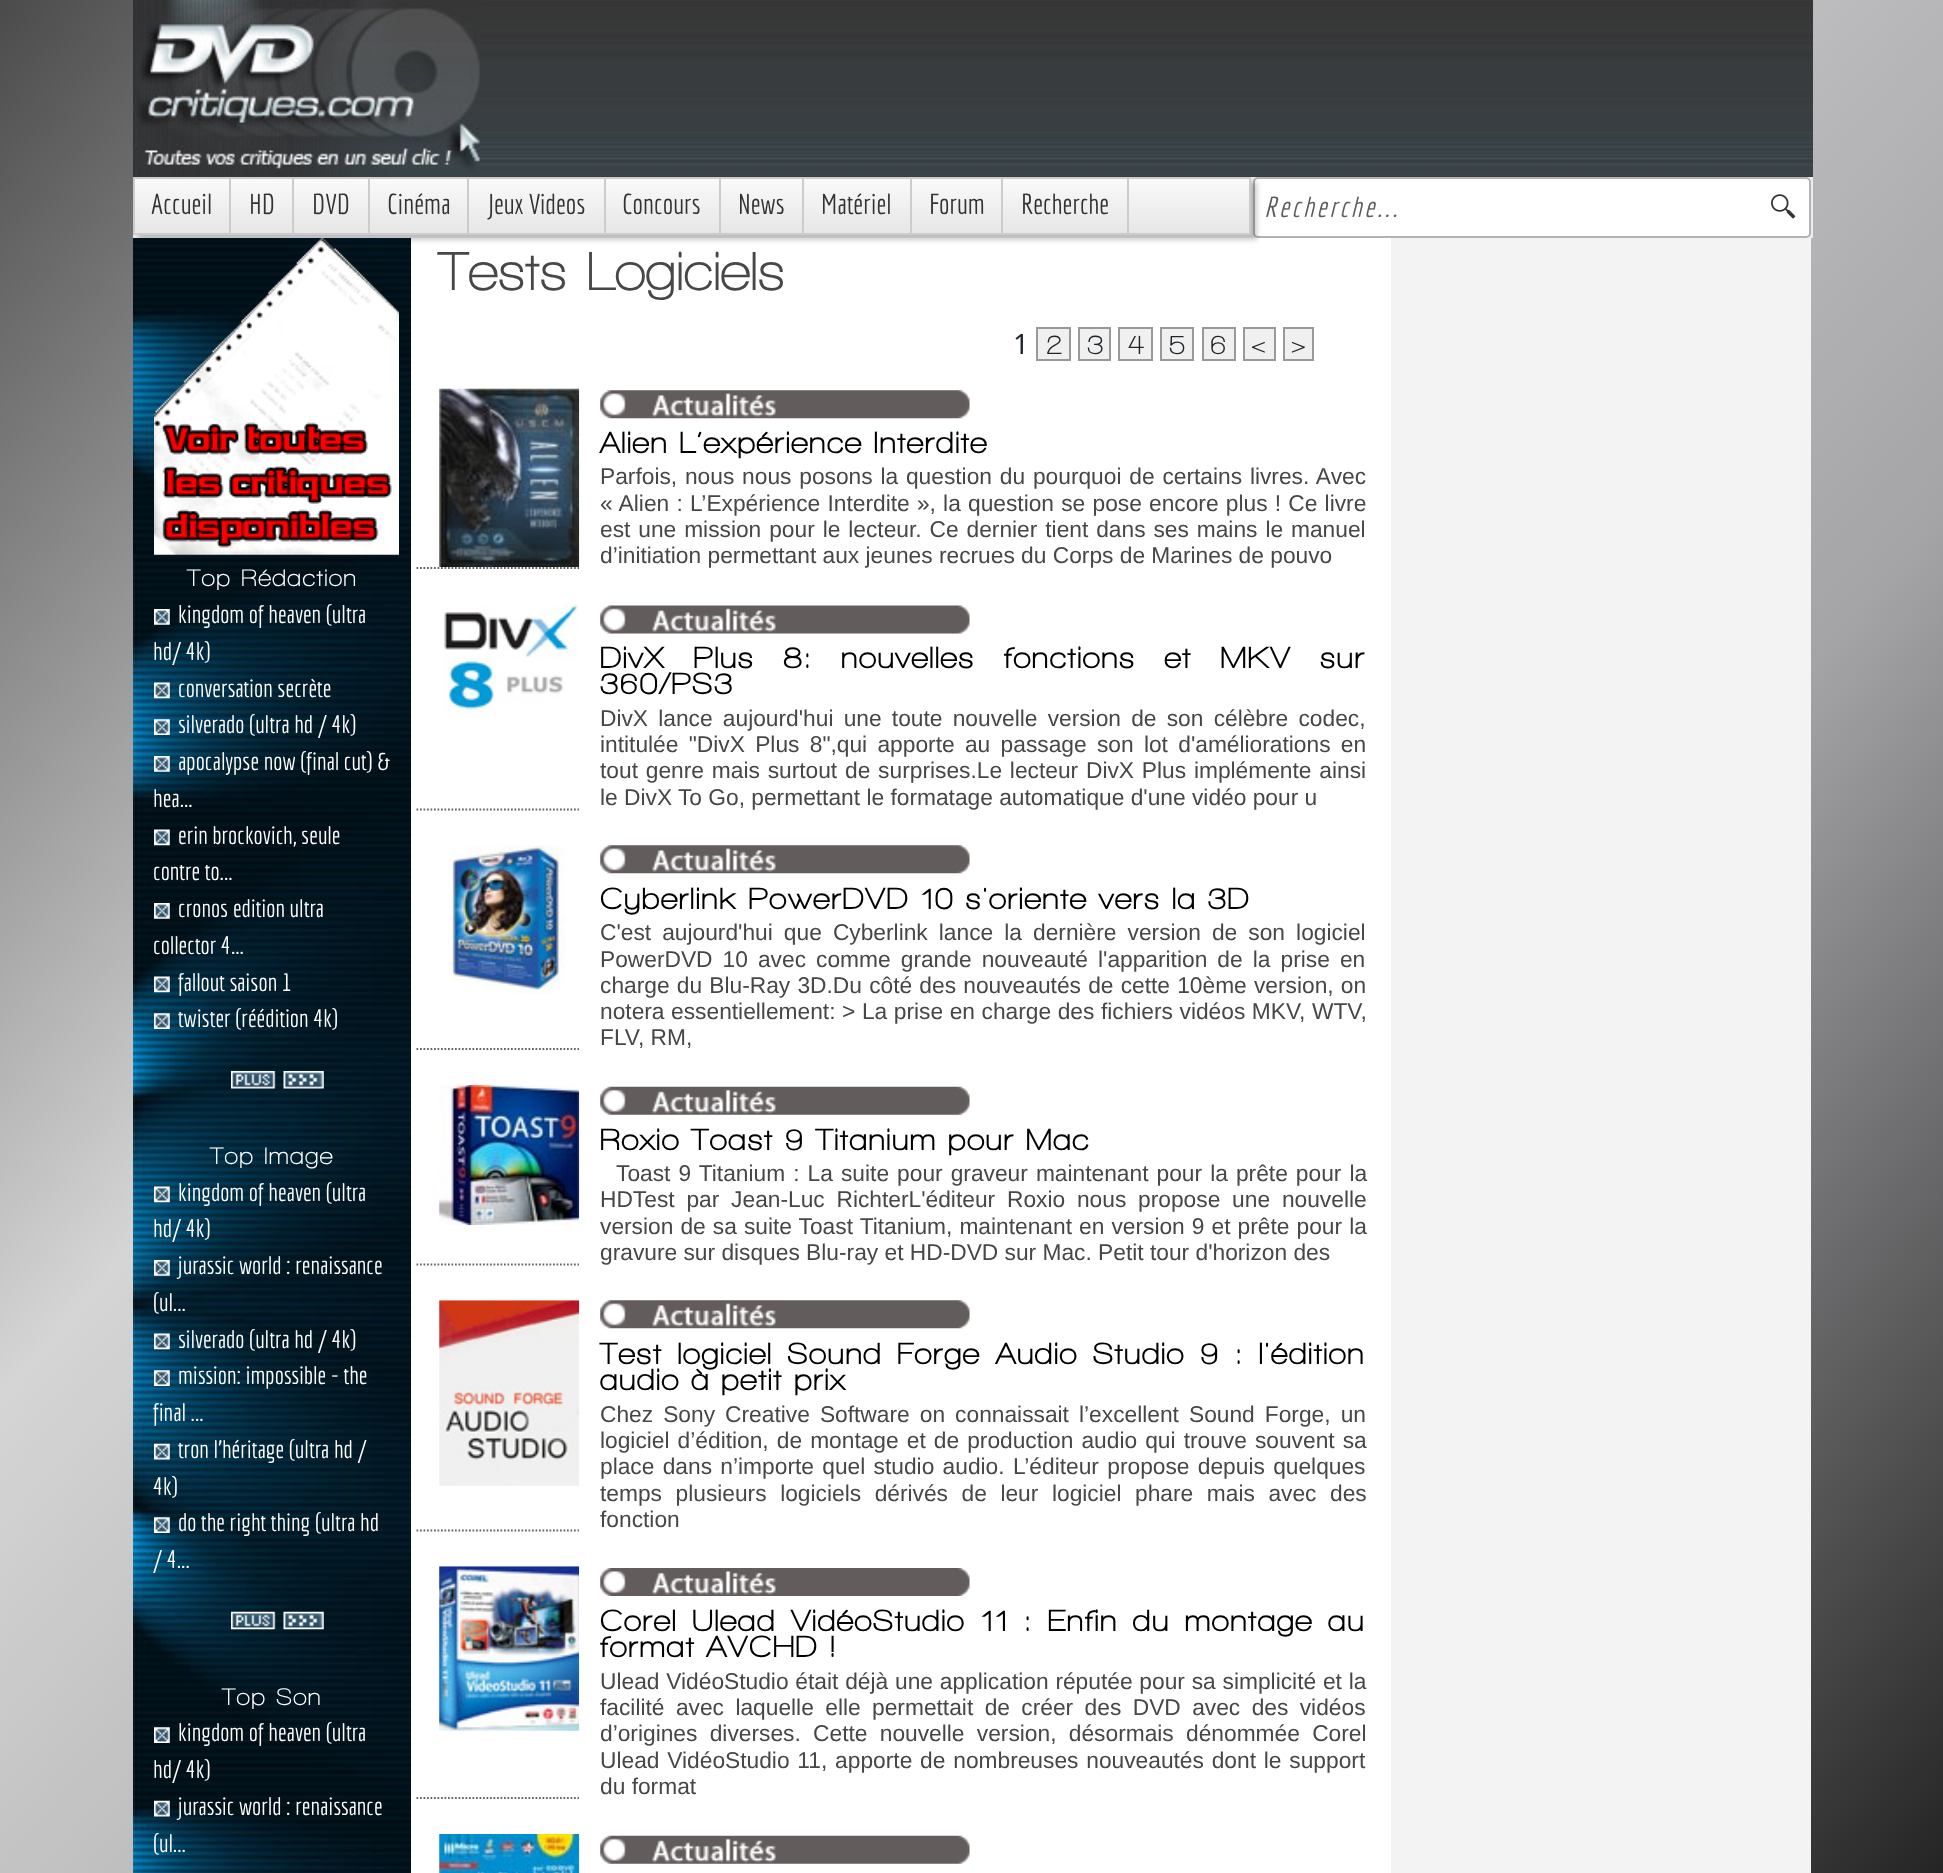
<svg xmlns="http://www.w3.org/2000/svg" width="1943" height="1873">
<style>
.a{font:28px Economica;fill:#333}
.b{font:italic 28px Economica;letter-spacing:2.75px;fill:#5c5c5c}
.c{font:bold 24.5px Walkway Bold;letter-spacing:1.25px;fill:#fff}
.d{font:24.5px Economica;fill:#fff}
.e{font:bold 56px Walkway Bold;fill:#474746}
.f{font:28px Noto Sans;fill:#212529}
.g{font:bold 28px Walkway Bold;fill:#212529}
.h{font:800 31.5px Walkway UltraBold;letter-spacing:1.32px;fill:#000}
.i{font:22.75px Liberation Sans;fill:#474746}
</style>
<defs>
<linearGradient id="g1" gradientUnits="userSpaceOnUse" x1="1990" y1="1822" x2="-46" y2="52"><stop offset="0" stop-color="#242424"/><stop offset="0.33" stop-color="#a4a3a6"/><stop offset="0.66" stop-color="#d5d5d5"/><stop offset="1" stop-color="#4b4b4b"/></linearGradient>
<linearGradient id="g2" gradientUnits="userSpaceOnUse" x1="692" y1="178" x2="692" y2="233"><stop offset="0" stop-color="#fafafa"/><stop offset="1" stop-color="#e6e6e6"/></linearGradient>
</defs>
<rect width="100%" height="100%" fill="#fff"/>
<path fill="url(#g1)" d="M0 0h1943v1873H0z"/>
<image href="1.png" x="133" y="0" width="1680" height="177"/>
<image href="2.png" x="133" y="0" width="348" height="177"/>
<path fill="#ececec" d="M133 177h1680v61H133z"/>
<rect fill="#fff" stroke="#b3b3b3" stroke-width="2" x="1254" y="178" width="556" height="59" rx="4"/>
<image href="4.png" x="133" y="238" width="278" height="1635"/>
<image href="5.png" x="154" y="238" width="245" height="317"/>
<path fill="#fff" d="M411 238h980v1635H411z"/>
<path fill="#00000033" filter="blur(2.5px)" d="M138 182h1119v58H138z"/>
<path fill="url(#g2)" d="M135 179h1114v54H135z"/>
<path fill="none" stroke="#cdcccc" stroke-width="2" d="M134 178h1116v56H134z"/>
<path fill="#cdcccc" d="M229 179h2v54H229z"/>
<path fill="#cdcccc" d="M292 179h2v54H292z"/>
<path fill="#cdcccc" d="M368 179h2v54H368z"/>
<path fill="#cdcccc" d="M467 179h2v54H467z"/>
<path fill="#cdcccc" d="M604 179h2v54H604z"/>
<path fill="#cdcccc" d="M719 179h2v54H719z"/>
<path fill="#cdcccc" d="M802 179h2v54H802z"/>
<path fill="#cdcccc" d="M910 179h2v54H910z"/>
<path fill="#cdcccc" d="M1001 179h2v54H1001z"/>
<path fill="#cdcccc" d="M1127 179h2v54H1127z"/>
<image href="3.png" x="1771" y="194" width="25" height="25"/>
<image href="6.png" x="154" y="609" width="16" height="16"/>
<image href="7.png" x="154" y="682" width="16" height="17"/>
<image href="8.png" x="154" y="719" width="16" height="16"/>
<image href="9.png" x="154" y="756" width="16" height="16"/>
<image href="10.png" x="154" y="829" width="16" height="17"/>
<image href="11.png" x="154" y="903" width="16" height="16"/>
<image href="12.png" x="154" y="976" width="16" height="17"/>
<image href="13.png" x="154" y="1013" width="16" height="16"/>
<image href="14.png" x="231" y="1071" width="93" height="18"/>
<image href="15.png" x="154" y="1186" width="16" height="17"/>
<image href="16.png" x="154" y="1260" width="16" height="16"/>
<image href="17.png" x="154" y="1333" width="16" height="17"/>
<image href="18.png" x="154" y="1370" width="16" height="16"/>
<image href="19.png" x="154" y="1443" width="16" height="17"/>
<image href="20.png" x="154" y="1517" width="16" height="16"/>
<image href="21.png" x="231" y="1611" width="93" height="19"/>
<image href="22.png" x="154" y="1727" width="16" height="16"/>
<image href="23.png" x="154" y="1800" width="16" height="17"/>
<path fill="#f0f0f0" stroke="#999" stroke-width="2" d="M1037 328h33v32H1037z"/>
<path fill="#f0f0f0" stroke="#999" stroke-width="2" d="M1079 328h31v32H1079z"/>
<path fill="#f0f0f0" stroke="#999" stroke-width="2" d="M1119 328h33v32H1119z"/>
<path fill="#f0f0f0" stroke="#999" stroke-width="2" d="M1161 328h32v32H1161z"/>
<path fill="#f0f0f0" stroke="#999" stroke-width="2" d="M1203 328h32v32H1203z"/>
<path fill="#f0f0f0" stroke="#999" stroke-width="2" d="M1244 328h31v32H1244z"/>
<path fill="#f0f0f0" stroke="#999" stroke-width="2" d="M1284 328h29v32H1284z"/>
<path fill="none" stroke="#666" stroke-width="1.8" stroke-dasharray="1.75 1.75" d="M416.5 568h162.5"/>
<image href="24.png" x="439" y="388" width="141" height="179"/>
<image href="25.png" x="600" y="390" width="370" height="29"/>
<path fill="none" stroke="#666" stroke-width="1.8" stroke-dasharray="1.75 1.75" d="M416.5 809.5h162.5"/>
<image href="26.png" x="443" y="604" width="136" height="108"/>
<image href="27.png" x="600" y="605" width="370" height="29"/>
<path fill="none" stroke="#666" stroke-width="1.8" stroke-dasharray="1.75 1.75" d="M416.5 1049h162.5"/>
<image href="28.png" x="449" y="845" width="117" height="149"/>
<image href="25.png" x="600" y="845" width="370" height="29"/>
<path fill="none" stroke="#666" stroke-width="1.8" stroke-dasharray="1.75 1.75" d="M416.5 1264.5h162.5"/>
<image href="29.png" x="439" y="1085" width="141" height="140"/>
<image href="30.png" x="600" y="1086" width="370" height="29"/>
<path fill="none" stroke="#666" stroke-width="1.8" stroke-dasharray="1.75 1.75" d="M416.5 1530.5h162.5"/>
<image href="31.png" x="439" y="1300" width="141" height="186"/>
<image href="25.png" x="600" y="1300" width="370" height="29"/>
<path fill="none" stroke="#666" stroke-width="1.8" stroke-dasharray="1.75 1.75" d="M416.5 1798h162.5"/>
<image href="32.png" x="439" y="1566" width="141" height="165"/>
<image href="33.png" x="600" y="1568" width="370" height="28"/>
<image href="34.png" x="439" y="1834" width="141" height="39"/>
<image href="30.png" x="600" y="1835" width="370" height="29"/>
<path fill="#f3f3f3" d="M1391 238h420v1635H1391z"/>
<text class="a" x="151" y="214">Accueil</text>
<text class="a" x="249" y="214">HD</text>
<text class="a" x="312" y="214">DVD</text>
<text class="a" x="387" y="214">Cinéma</text>
<text class="a" x="487" y="214">Jeux Videos</text>
<text class="a" x="622" y="214">Concours</text>
<text class="a" x="738" y="214">News</text>
<text class="a" x="821" y="214">Matériel</text>
<text class="a" x="929" y="214">Forum</text>
<text class="a" x="1021" y="214">Recherche</text>
<text class="b" x="1264" y="217">Recherche...</text>
<text class="c" x="187" y="586">Top Rédaction</text>
<text class="d" x="178" y="623">kingdom of heaven (ultra</text>
<text class="d" x="153" y="660">hd/ 4k)</text>
<text class="d" x="178" y="697">conversation secrète</text>
<text class="d" x="178" y="733">silverado (ultra hd / 4k)</text>
<text class="d" x="178" y="770">apocalypse now (final cut) &amp;</text>
<text class="d" x="153" y="807">hea...</text>
<text class="d" x="178" y="844">erin brockovich, seule</text>
<text class="d" x="153" y="880">contre to...</text>
<text class="d" x="178" y="917">cronos edition ultra</text>
<text class="d" x="153" y="954">collector 4...</text>
<text class="d" x="178" y="991">fallout saison 1</text>
<text class="d" x="178" y="1027">twister (réédition 4k)</text>
<text class="c" x="210" y="1164">Top Image</text>
<text class="d" x="178" y="1201">kingdom of heaven (ultra</text>
<text class="d" x="153" y="1237">hd/ 4k)</text>
<text class="d" x="178" y="1274">jurassic world : renaissance</text>
<text class="d" x="153" y="1311">(ul...</text>
<text class="d" x="178" y="1348">silverado (ultra hd / 4k)</text>
<text class="d" x="178" y="1384">mission: impossible - the</text>
<text class="d" x="153" y="1421">final ...</text>
<text class="d" x="178" y="1458">tron l'héritage (ultra hd /</text>
<text class="d" x="153" y="1495">4k)</text>
<text class="d" x="178" y="1531">do the right thing (ultra hd</text>
<text class="d" x="153" y="1568">/ 4...</text>
<text class="c" x="222" y="1705">Top Son</text>
<text class="d" x="178" y="1741">kingdom of heaven (ultra</text>
<text class="d" x="153" y="1778">hd/ 4k)</text>
<text class="d" x="178" y="1815">jurassic world : renaissance</text>
<text class="d" x="153" y="1852">(ul...</text>
<text class="e" x="438" y="290">Tests Logiciels</text>
<text class="f" x="1013" y="354">1</text>
<text class="g" x="1046" y="354">2</text>
<text class="g" x="1087" y="354">3</text>
<text class="g" x="1128" y="354">4</text>
<text class="g" x="1169" y="354">5</text>
<text class="g" x="1210" y="354">6</text>
<text class="g" x="1251" y="354">&lt;</text>
<text class="g" x="1291" y="354">&gt;</text>
<text class="h" x="600" y="453" word-spacing="-1.25">Alien L’expérience Interdite</text>
<text class="i" x="600" y="484" word-spacing="1.5">Parfois, nous nous posons la question du pourquoi de certains livres. Avec</text>
<text class="i" x="600" y="511" word-spacing="0.9">« Alien : L’Expérience Interdite », la question se pose encore plus ! Ce livre</text>
<text class="i" x="600" y="537" word-spacing="1.6">est une mission pour le lecteur. Ce dernier tient dans ses mains le manuel</text>
<text class="i" x="600" y="563">d’initiation permettant aux jeunes recrues du Corps de Marines de pouvo</text>
<text class="h" x="600" y="668" word-spacing="16.25">DivX Plus 8: nouvelles fonctions et MKV sur</text>
<text class="h" x="600" y="694">360/PS3</text>
<text class="i" x="600" y="726" word-spacing="3.9">DivX lance aujourd'hui une toute nouvelle version de son célèbre codec,</text>
<text class="i" x="600" y="752" word-spacing="4">intitulée "DivX Plus 8",qui apporte au passage son lot d'améliorations en</text>
<text class="i" x="600" y="778" word-spacing="1.5">tout genre mais surtout de surprises.Le lecteur DivX Plus implémente ainsi</text>
<text class="i" x="600" y="805">le DivX To Go, permettant le formatage automatique d'une vidéo pour u</text>
<text class="h" x="600" y="909" word-spacing="-1.25">Cyberlink PowerDVD 10 s'oriente vers la 3D</text>
<text class="i" x="600" y="940" word-spacing="4.75">C'est aujourd'hui que Cyberlink lance la dernière version de son logiciel</text>
<text class="i" x="600" y="967" word-spacing="3.75">PowerDVD 10 avec comme grande nouveauté l'apparition de la prise en</text>
<text class="i" x="600" y="993" word-spacing="0.9">charge du Blu-Ray 3D.Du côté des nouveautés de cette 10ème version, on</text>
<text class="i" x="600" y="1019" word-spacing="0.25">notera essentiellement: &gt; La prise en charge des fichiers vidéos MKV, WTV,</text>
<text class="i" x="600" y="1045">FLV, RM,</text>
<text class="h" x="600" y="1150" word-spacing="-1.25">Roxio Toast 9 Titanium pour Mac</text>
<text class="i" x="616" y="1181" word-spacing="1.75">Toast 9 Titanium : La suite pour graveur maintenant pour la prête pour la</text>
<text class="i" x="600" y="1207" word-spacing="5.5">HDTest par Jean-Luc RichterL'éditeur Roxio nous propose une nouvelle</text>
<text class="i" x="600" y="1234" word-spacing="0.75">version de sa suite Toast Titanium, maintenant en version 9 et prête pour la</text>
<text class="i" x="600" y="1260">gravure sur disques Blu-ray et HD-DVD sur Mac. Petit tour d'horizon des</text>
<text class="h" x="600" y="1364" word-spacing="2.5">Test logiciel Sound Forge Audio Studio 9 : l'édition</text>
<text class="h" x="600" y="1390" word-spacing="-1.25">audio à petit prix</text>
<text class="i" x="600" y="1422" word-spacing="3.75">Chez Sony Creative Software on connaissait l’excellent Sound Forge, un</text>
<text class="i" x="600" y="1448" word-spacing="1.75">logiciel d’édition, de montage et de production audio qui trouve souvent sa</text>
<text class="i" x="600" y="1474" word-spacing="2">place dans n’importe quel studio audio. L’éditeur propose depuis quelques</text>
<text class="i" x="600" y="1501" word-spacing="7.25">temps plusieurs logiciels dérivés de leur logiciel phare mais avec des</text>
<text class="i" x="600" y="1527">fonction</text>
<text class="h" x="600" y="1631" word-spacing="2.5">Corel Ulead VidéoStudio 11 : Enfin du montage au</text>
<text class="h" x="600" y="1657" word-spacing="-1.25">format AVCHD !</text>
<text class="i" x="600" y="1689" word-spacing="0.5">Ulead VidéoStudio était déjà une application réputée pour sa simplicité et la</text>
<text class="i" x="600" y="1715" word-spacing="5.1">facilité avec laquelle elle permettait de créer des DVD avec des vidéos</text>
<text class="i" x="600" y="1741" word-spacing="6">d’origines diverses. Cette nouvelle version, désormais dénommée Corel</text>
<text class="i" x="600" y="1768" word-spacing="1.5">Ulead VidéoStudio 11, apporte de nombreuses nouveautés dont le support</text>
<text class="i" x="600" y="1794">du format</text>
</svg>
